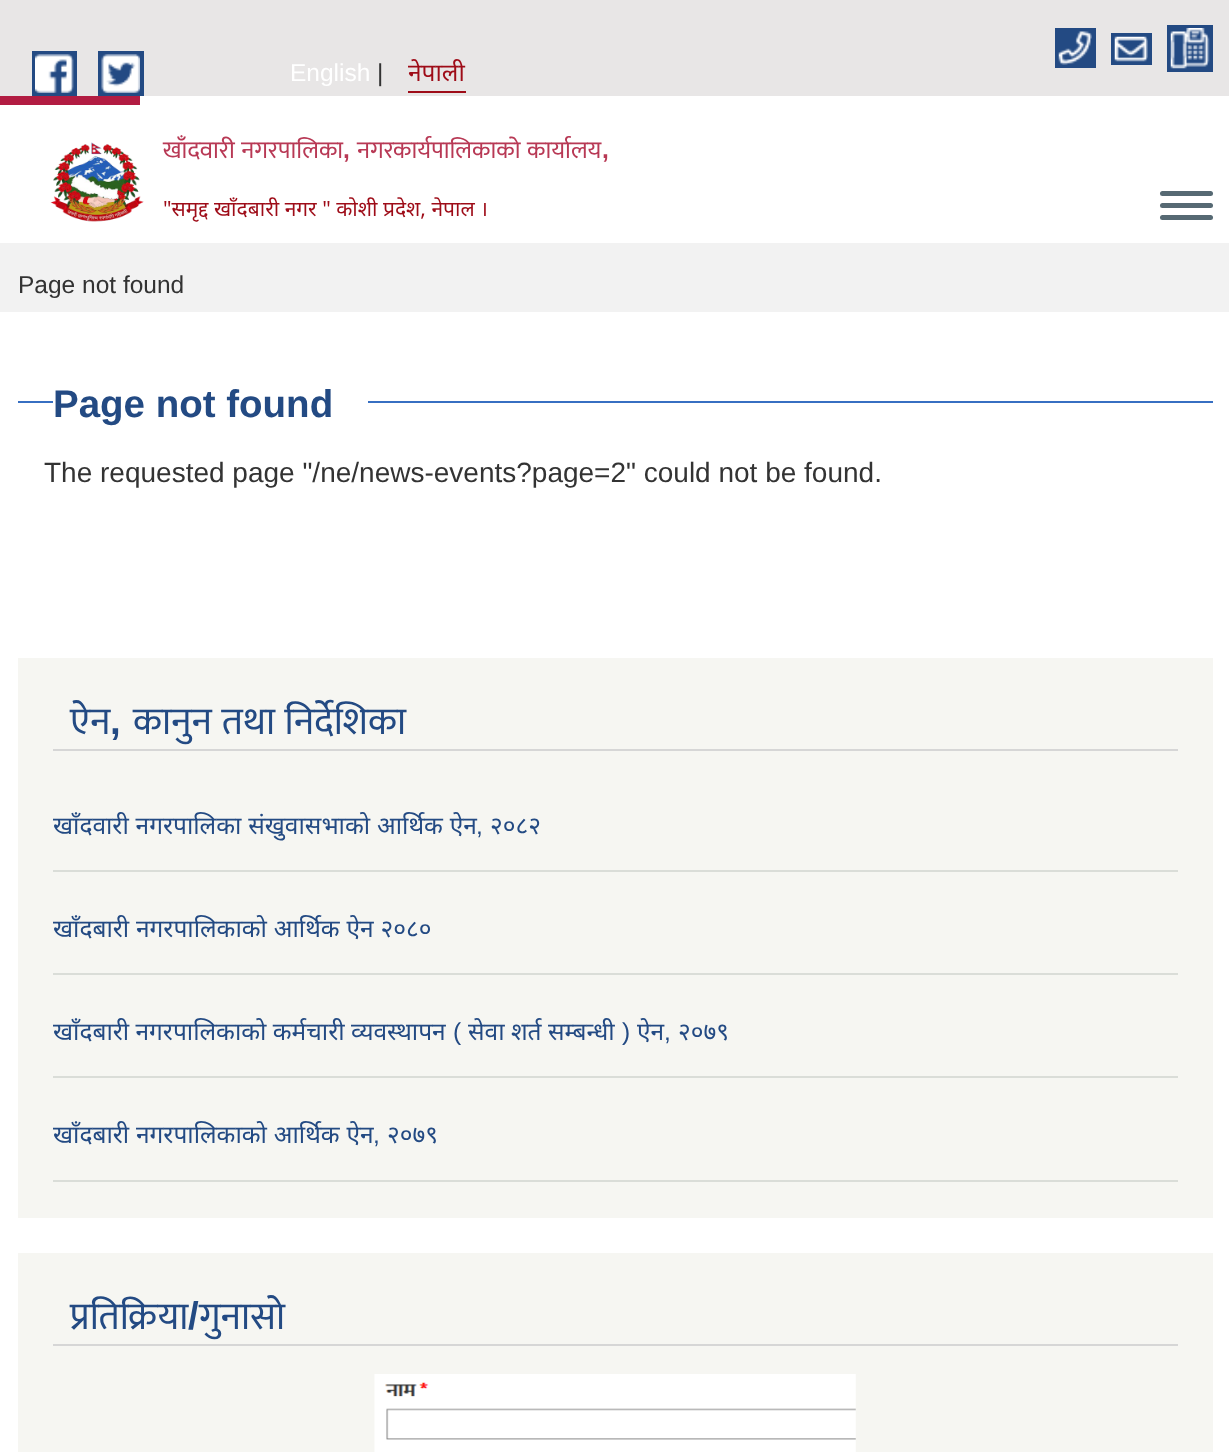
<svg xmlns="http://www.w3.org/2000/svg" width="1229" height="1452">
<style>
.a{font:24.5px Liberation Sans;fill:#fff}
.b{font:24.5px Liberation Sans;fill:#333}
.c{font:24.5px Noto Sans;fill:#9e0c18}
.d{font:24.5px Mukta;fill:#b83955}
.e{font:bold 24.5px Liberation Sans;fill:#b83955}
.f{font:21px Noto Sans;fill:#9e0c18}
.g{font:bold 38.5px Liberation Sans;fill:#234a83}
.h{font:28px Liberation Sans;fill:#333}
.i{font:38.5px Mukta;fill:#234a83}
.j{font:24.5px Noto Sans;fill:#234a83}
.k{font:24.5px Liberation Sans;fill:#234a83}
</style>
<rect width="100%" height="100%" fill="#fff"/>
<path fill="#e8e6e6" d="M0 0h1229v96H0z"/>
<path fill="#234a83" d="M32 51h45v45H32z"/>
<path fill="#234a83" d="M98 51h46v45H98z"/>
<image href="1.png" x="35" y="54" width="39" height="39"/>
<image href="2.png" x="101" y="54" width="39" height="39"/>
<path fill="#9e0c18" d="M408 91h58v2H408z"/>
<path fill="#234a83" d="M1055 28h41v40H1055z"/>
<path fill="#234a83" d="M1167 25h46v47H1167z"/>
<image href="3.png" x="1058" y="31" width="34" height="34"/>
<path fill="#234a83" d="M1111 33h41v32H1111z"/>
<image href="4.png" x="1170" y="28" width="40" height="41"/>
<image href="5.png" x="1114" y="36" width="34" height="26"/>
<path fill="#b21c42" d="M0 96h140v9H0z"/>
<image href="6.png" x="50" y="142" width="94" height="80"/>
<rect fill="#566973" x="1160" y="191" width="53" height="5" rx="2.5"/>
<rect fill="#566973" x="1160" y="203" width="53" height="5" rx="2.5"/>
<rect fill="#566973" x="1160" y="215" width="53" height="5" rx="2.5"/>
<path fill="#f2f2f2" d="M0 243h1229v69H0z"/>
<path fill="#376fc2" d="M18 401h1195v2H18z"/>
<path fill="#fff" d="M53 401h315v2H53z"/>
<path fill="#f6f6f2" d="M18 658h1195v560H18z"/>
<path fill="#d6d6d6" d="M53 749h1125v2H53z"/>
<path fill="#daddd8" d="M53 870h1125v2H53z"/>
<path fill="#daddd8" d="M53 973h1125v2H53z"/>
<path fill="#daddd8" d="M53 1076h1125v2H53z"/>
<path fill="#daddd8" d="M53 1180h1125v2H53z"/>
<path fill="#f6f6f2" d="M18 1253h1195v199H18z"/>
<path fill="#d6d6d6" d="M53 1344h1125v2H53z"/>
<image href="7.png" x="374" y="1374" width="482" height="78"/>
<text class="a" x="290" y="81">English</text>
<text class="b" x="377" y="81">|</text>
<text class="c" x="408" y="81">नेपाली</text>
<text class="d" x="163" y="158" word-spacing="1">खाँदवारी नगरपालिका</text>
<text class="e" x="343" y="158">,</text>
<text class="d" x="357" y="158" word-spacing="1">नगरकार्यपालिकाको कार्यालय</text>
<text class="e" x="602" y="158">,</text>
<text class="f" x="163" y="216">"समृद्द खाँदबारी नगर " कोशी प्रदेश, नेपाल ।</text>
<text class="b" x="18" y="293">Page not found</text>
<text class="g" x="53" y="417">Page not found</text>
<text class="h" x="44" y="482">The requested page "/ne/news-events?page=2" could not be found.</text>
<text class="i" x="70" y="734">ऐन</text>
<text class="g" x="110" y="734">,</text>
<text class="i" x="133" y="734" word-spacing="1">कानुन तथा निर्देशिका</text>
<text class="j" x="53" y="834" word-spacing="0.5">खाँदवारी नगरपालिका संखुवासभाको आर्थिक ऐन</text>
<text class="k" x="476" y="834">,</text>
<text class="j" x="490" y="834">२०८२</text>
<text class="j" x="53" y="937" word-spacing="0.5">खाँदबारी नगरपालिकाको आर्थिक ऐन २०८०</text>
<text class="j" x="53" y="1040">खाँदबारी नगरपालिकाको कर्मचारी व्यवस्थापन</text>
<text class="k" x="453" y="1040">(</text>
<text class="j" x="468" y="1040">सेवा शर्त सम्बन्धी</text>
<text class="k" x="622" y="1040">)</text>
<text class="j" x="637" y="1040">ऐन</text>
<text class="k" x="664" y="1040">,</text>
<text class="j" x="678" y="1040">२०७९</text>
<text class="j" x="53" y="1143" word-spacing="0.5">खाँदबारी नगरपालिकाको आर्थिक ऐन</text>
<text class="k" x="373" y="1143">,</text>
<text class="j" x="387" y="1143">२०७९</text>
<text class="i" x="70" y="1329">प्रतिक्रिया</text>
<text class="g" x="188" y="1329">/</text>
<text class="i" x="199" y="1329">गुनासो</text>
</svg>
